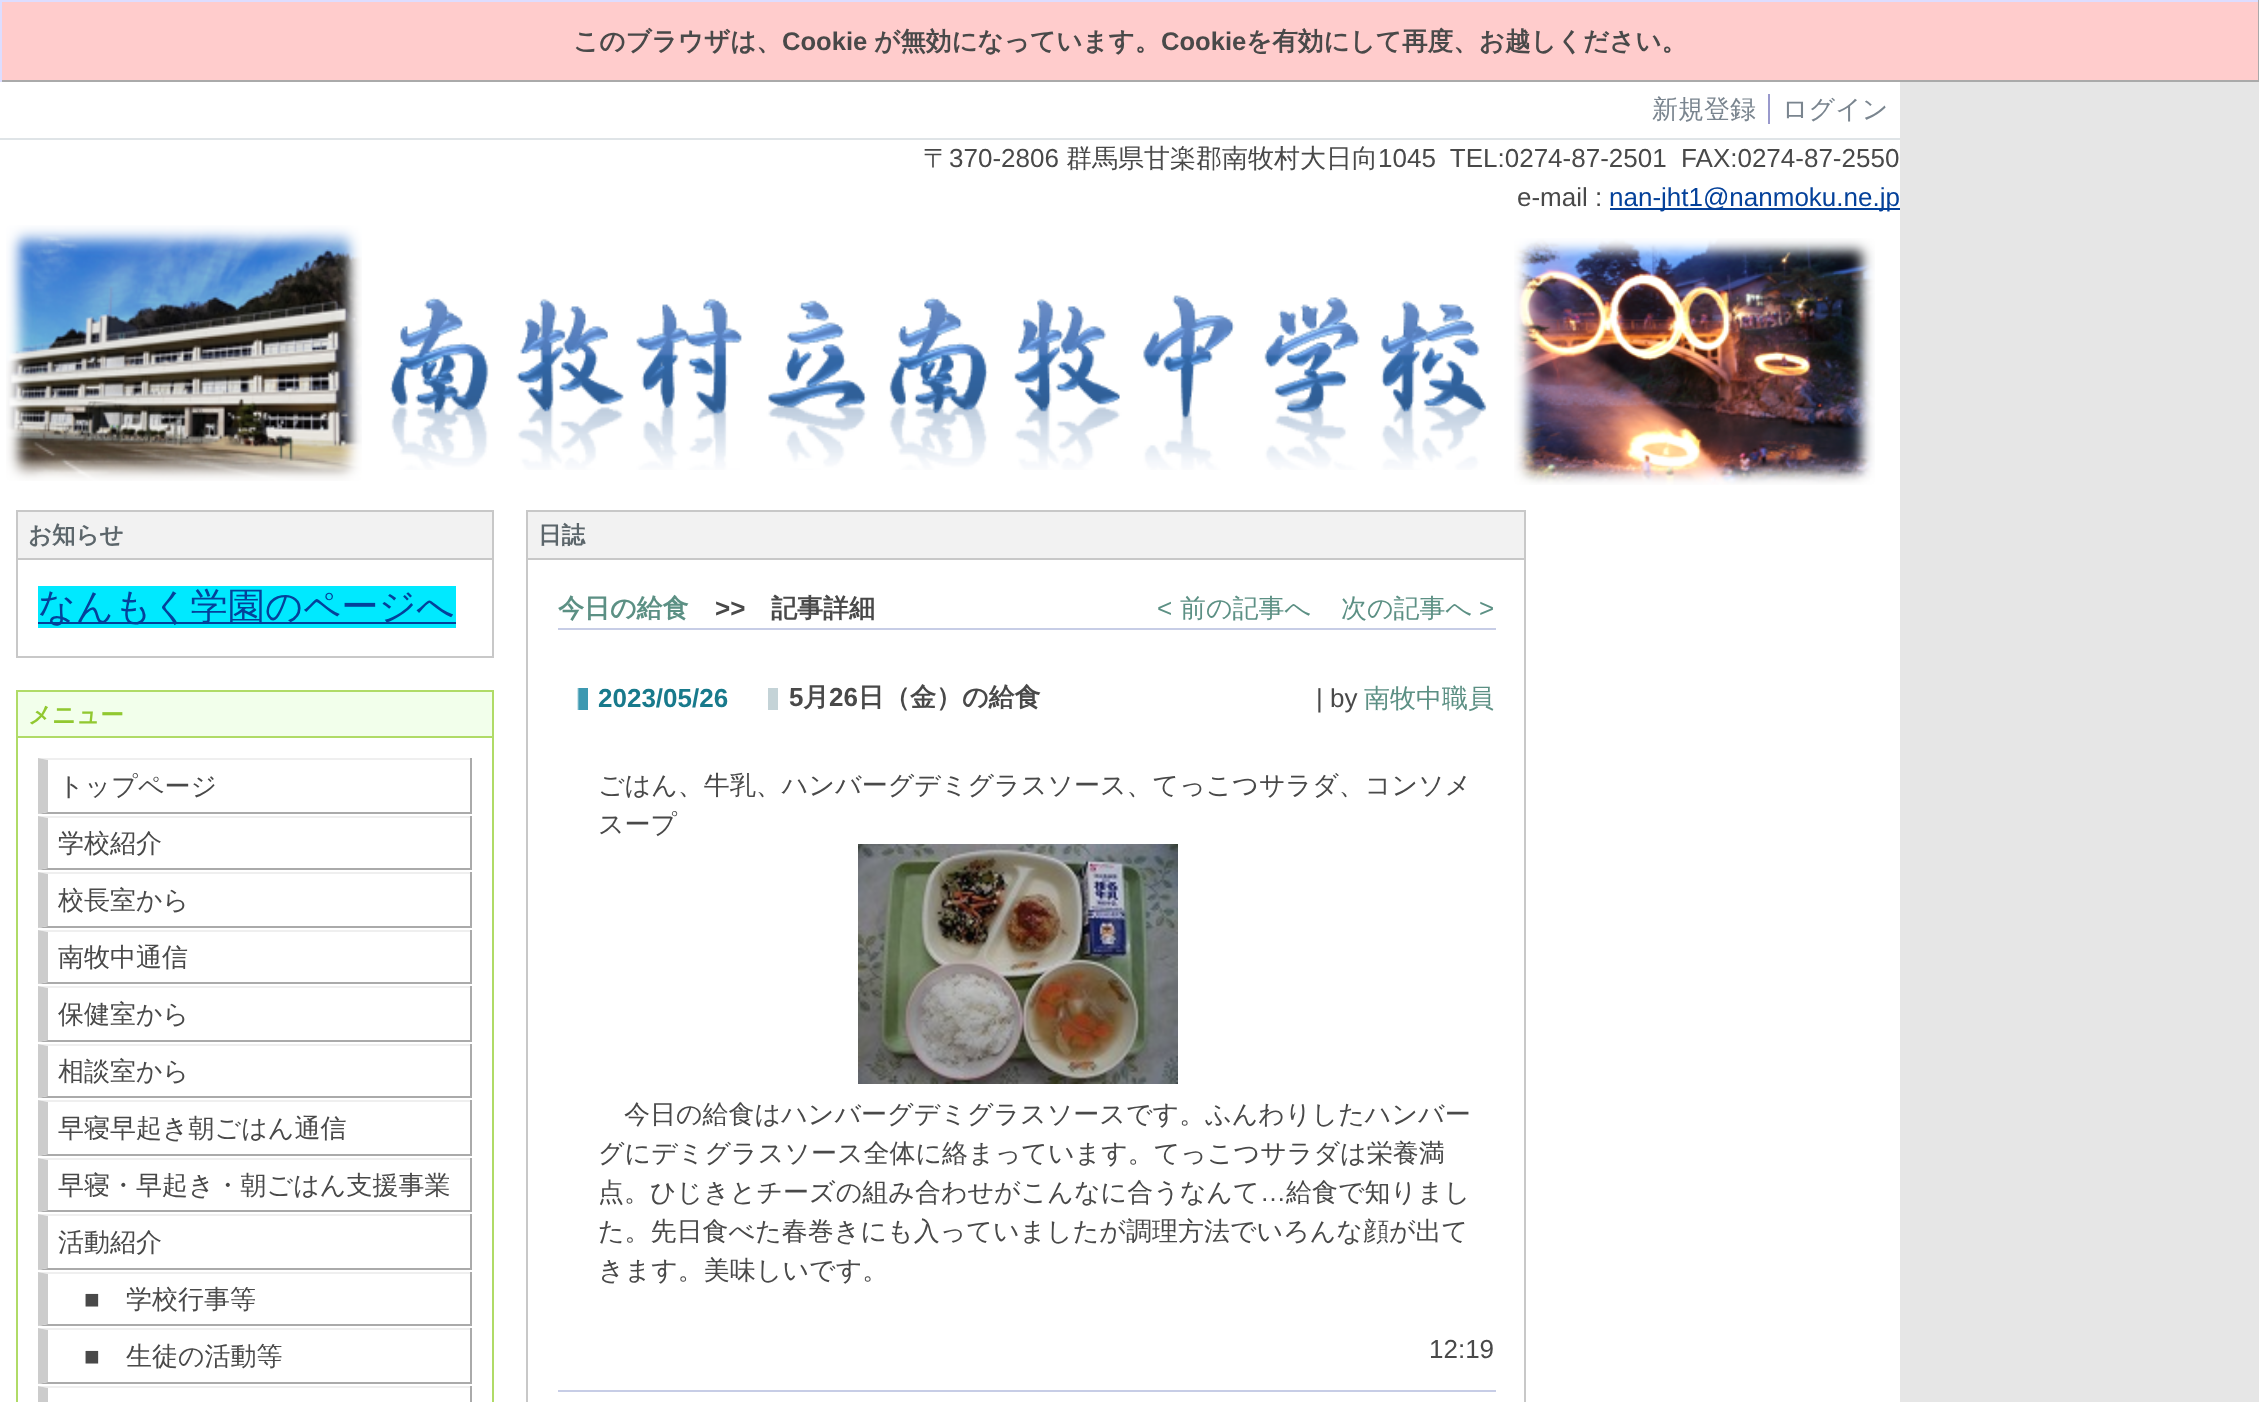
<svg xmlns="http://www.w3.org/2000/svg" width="2259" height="1402">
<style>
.a{font:bold 25.6px WenQuanYi Zen Hei;fill:#494949}
.b{font:bold 25.6px Liberation Sans;fill:#494949}
.c{font:500 26px WenQuanYi Zen Hei;fill:#7a858f}
.d{font:500 26px WenQuanYi Zen Hei;fill:#494949}
.e{font:26px Liberation Sans;fill:#494949}
.f{font:26px Liberation Sans;fill:#04419a}
.g{font:bold 23.5px WenQuanYi Zen Hei;fill:#5c666b}
.h{font:500 37.25px WenQuanYi Zen Hei;fill:#04419a}
.i{font:bold 23.5px WenQuanYi Zen Hei;fill:#91c830}
.j{font:bold 26px WenQuanYi Zen Hei;fill:#5c9084}
.k{font:bold 26px Liberation Sans;fill:#494949}
.l{font:bold 26px WenQuanYi Zen Hei;fill:#494949}
.m{font:26px Liberation Sans;fill:#5c9084}
.n{font:500 26px WenQuanYi Zen Hei;fill:#5c9084}
.o{font:bold 26px Liberation Sans;fill:#187a8c}
</style>
<rect width="100%" height="100%" fill="#e6e6e6"/>
<path fill="#fcc" d="M2 2h2256v78H2z"/>
<path fill="#ddf" d="M0 0h2259v2H0z"/>
<path fill="#aaa" d="M2258 0h1v82H2258z"/>
<path fill="#aaa" d="M0 80h2259v2H0z"/>
<path fill="#ddf" d="M0 0h2v82H0z"/>
<path fill="#fff" d="M0 82h1900v56H0z"/>
<path fill="#dfe4e7" d="M0 138h1900v2H0z"/>
<path fill="#99c" d="M1768 94h2v30H1768z"/>
<path fill="#fff" d="M0 140h1900v354H0z"/>
<path fill="#04419a" d="M1610 208h290v2H1610z"/>
<image href="1.png" x="6" y="225" width="356" height="256"/>
<image href="2.png" x="390" y="295" width="1097" height="175"/>
<image href="3.png" x="1514" y="238" width="361" height="247"/>
<path fill="#fff" d="M0 494h1900v908H0z"/>
<path fill="#c8c8c8" d="M16 510h478v2H16z"/>
<path fill="#c8c8c8" d="M492 510h2v148H492z"/>
<path fill="#c8c8c8" d="M16 656h478v2H16z"/>
<path fill="#c8c8c8" d="M16 510h2v148H16z"/>
<path fill="#f2f2f2" d="M18 512h474v46H18z"/>
<path fill="#c8c8c8" d="M16 558h478v2H16z"/>
<path fill="#00e9ff" d="M38 586h418v42H38z"/>
<path fill="#04419a" d="M38 622h418v2H38z"/>
<path fill="#b0db67" d="M16 690h478v2H16z"/>
<path fill="#b0db67" d="M492 690h2v712H492z"/>
<path fill="#b0db67" d="M16 690h2v712H16z"/>
<path fill="#f2ffeb" d="M18 692h474v44H18z"/>
<path fill="#b0db67" d="M16 736h478v2H16z"/>
<path fill="#efefef" d="M38 758h434l-2 2h-422z"/>
<path fill="#aaa" d="M470 758h2v56H470z"/>
<path fill="#aaa" d="M472 814h-434l10-2h422z"/>
<path fill="#ccc" d="M38 814v-56l10 2v52z"/>
<path fill="#efefef" d="M38 816h434l-2 2h-422z"/>
<path fill="#aaa" d="M470 816h2v54H470z"/>
<path fill="#aaa" d="M472 870h-434l10-2h422z"/>
<path fill="#ccc" d="M38 870v-54l10 2v50z"/>
<path fill="#efefef" d="M38 872h434l-2 2h-422z"/>
<path fill="#aaa" d="M470 872h2v56H470z"/>
<path fill="#aaa" d="M472 928h-434l10-2h422z"/>
<path fill="#ccc" d="M38 928v-56l10 2v52z"/>
<path fill="#efefef" d="M38 930h434l-2 2h-422z"/>
<path fill="#aaa" d="M470 930h2v54H470z"/>
<path fill="#aaa" d="M472 984h-434l10-2h422z"/>
<path fill="#ccc" d="M38 984v-54l10 2v50z"/>
<path fill="#efefef" d="M38 986h434l-2 2h-422z"/>
<path fill="#aaa" d="M470 986h2v56H470z"/>
<path fill="#aaa" d="M472 1042h-434l10-2h422z"/>
<path fill="#ccc" d="M38 1042v-56l10 2v52z"/>
<path fill="#efefef" d="M38 1044h434l-2 2h-422z"/>
<path fill="#aaa" d="M470 1044h2v54H470z"/>
<path fill="#aaa" d="M472 1098h-434l10-2h422z"/>
<path fill="#ccc" d="M38 1098v-54l10 2v50z"/>
<path fill="#efefef" d="M38 1100h434l-2 2h-422z"/>
<path fill="#aaa" d="M470 1100h2v56H470z"/>
<path fill="#aaa" d="M472 1156h-434l10-2h422z"/>
<path fill="#ccc" d="M38 1156v-56l10 2v52z"/>
<path fill="#efefef" d="M38 1158h434l-2 2h-422z"/>
<path fill="#aaa" d="M470 1158h2v54H470z"/>
<path fill="#aaa" d="M472 1212h-434l10-2h422z"/>
<path fill="#ccc" d="M38 1212v-54l10 2v50z"/>
<path fill="#efefef" d="M38 1214h434l-2 2h-422z"/>
<path fill="#aaa" d="M470 1214h2v56H470z"/>
<path fill="#aaa" d="M472 1270h-434l10-2h422z"/>
<path fill="#ccc" d="M38 1270v-56l10 2v52z"/>
<path fill="#efefef" d="M38 1272h434l-2 2h-422z"/>
<path fill="#aaa" d="M470 1272h2v54H470z"/>
<path fill="#aaa" d="M472 1326h-434l10-2h422z"/>
<path fill="#ccc" d="M38 1326v-54l10 2v50z"/>
<path fill="#efefef" d="M38 1328h434l-2 2h-422z"/>
<path fill="#aaa" d="M470 1328h2v56H470z"/>
<path fill="#aaa" d="M472 1384h-434l10-2h422z"/>
<path fill="#ccc" d="M38 1384v-56l10 2v52z"/>
<path fill="#efefef" d="M38 1386h434l-2 2h-422z"/>
<path fill="#aaa" d="M470 1386h2v16H470z"/>
<path fill="#ccc" d="M38 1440v-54l10 2v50z"/>
<path fill="#c8c8c8" d="M526 510h1000v2H526z"/>
<path fill="#c8c8c8" d="M1524 510h2v892H1524z"/>
<path fill="#c8c8c8" d="M526 510h2v892H526z"/>
<path fill="#f2f2f2" d="M528 512h996v46H528z"/>
<path fill="#c8c8c8" d="M526 558h1000v2H526z"/>
<image href="4.png" x="577" y="688" width="11" height="22"/>
<path fill="#c4d3d7" d="M768 688h10v22H768z"/>
<path fill="#c7cde6" d="M558 628h938v2H558z"/>
<image href="5.png" x="858" y="844" width="320" height="240"/>
<path fill="#c7cde6" d="M558 1390h938v2H558z"/>
<text class="a" x="573" y="50">このブラウザは、</text>
<text class="b" x="782" y="50">Cookie</text>
<text class="a" x="874" y="50">が無効になっています。</text>
<text class="b" x="1161" y="50">Cookie</text>
<text class="a" x="1246" y="50">を有効にして再度、お越しください。</text>
<text class="c" x="1652" y="118">新規登録</text>
<text class="c" x="1782" y="118">ログイン</text>
<text class="d" x="923" y="167">〒</text>
<text class="e" x="949" y="167">370-2806</text>
<text class="d" x="1066" y="167">群馬県甘楽郡南牧村大日向</text>
<text class="e" xml:space="preserve" x="1378" y="167">1045  TEL:0274-87-2501  FAX:0274-87-2550</text>
<text class="e" x="1517" y="206">e-mail :</text>
<text class="f" x="1609" y="206">nan-jht1@nanmoku.ne.jp</text>
<text class="g" x="28" y="543">お知らせ</text>
<text class="h" x="38" y="619">なんもく学園のページへ</text>
<text class="i" x="28" y="723">メニュー</text>
<text class="d" x="58" y="795">トップページ</text>
<text class="d" x="58" y="852">学校紹介</text>
<text class="d" x="58" y="909">校長室から</text>
<text class="d" x="58" y="966">南牧中通信</text>
<text class="d" x="58" y="1023">保健室から</text>
<text class="d" x="58" y="1080">相談室から</text>
<text class="d" x="58" y="1137">早寝早起き朝ごはん通信</text>
<text class="d" x="58" y="1194">早寝・早起き・朝ごはん支援事業</text>
<text class="d" x="58" y="1251">活動紹介</text>
<text class="e" x="84" y="1308">■</text>
<text class="d" x="126" y="1308">学校行事等</text>
<text class="e" x="84" y="1365">■</text>
<text class="d" x="126" y="1365">生徒の活動等</text>
<text class="g" x="538" y="543">日誌</text>
<text class="j" x="558" y="617">今日の給食</text>
<text class="k" x="715" y="617">&gt;&gt;</text>
<text class="l" x="771" y="617">記事詳細</text>
<text class="m" x="1157" y="617">&lt;</text>
<text class="n" x="1180" y="617">前の記事へ</text>
<text class="n" x="1341" y="617">次の記事へ</text>
<text class="m" x="1479" y="617">&gt;</text>
<text class="o" x="598" y="707">2023/05/26</text>
<text class="k" x="789" y="706">5</text>
<text class="l" x="803" y="706">月</text>
<text class="k" x="829" y="706">26</text>
<text class="l" x="858" y="706">日（金）の給食</text>
<text class="e" x="1316" y="707">| by</text>
<text class="n" x="1364" y="707">南牧中職員</text>
<text class="d" x="598" y="794">ごはん、牛乳、ハンバーグデミグラスソース、てっこつサラダ、コンソメ</text>
<text class="d" x="598" y="833">スープ</text>
<text class="d" x="624" y="1123">今日の給食はハンバーグデミグラスソースです。ふんわりしたハンバー</text>
<text class="d" x="598" y="1162">グにデミグラスソース全体に絡まっています。てっこつサラダは栄養満</text>
<text class="d" x="598" y="1201">点。ひじきとチーズの組み合わせがこんなに合うなんて</text>
<text class="e" x="1260" y="1201">…</text>
<text class="d" x="1286" y="1201">給食で知りまし</text>
<text class="d" x="598" y="1240">た。先日食べた春巻きにも入っていましたが調理方法でいろんな顔が出て</text>
<text class="d" x="598" y="1279">きます。美味しいです。</text>
<text class="e" x="1429" y="1358">12:19</text>
</svg>
